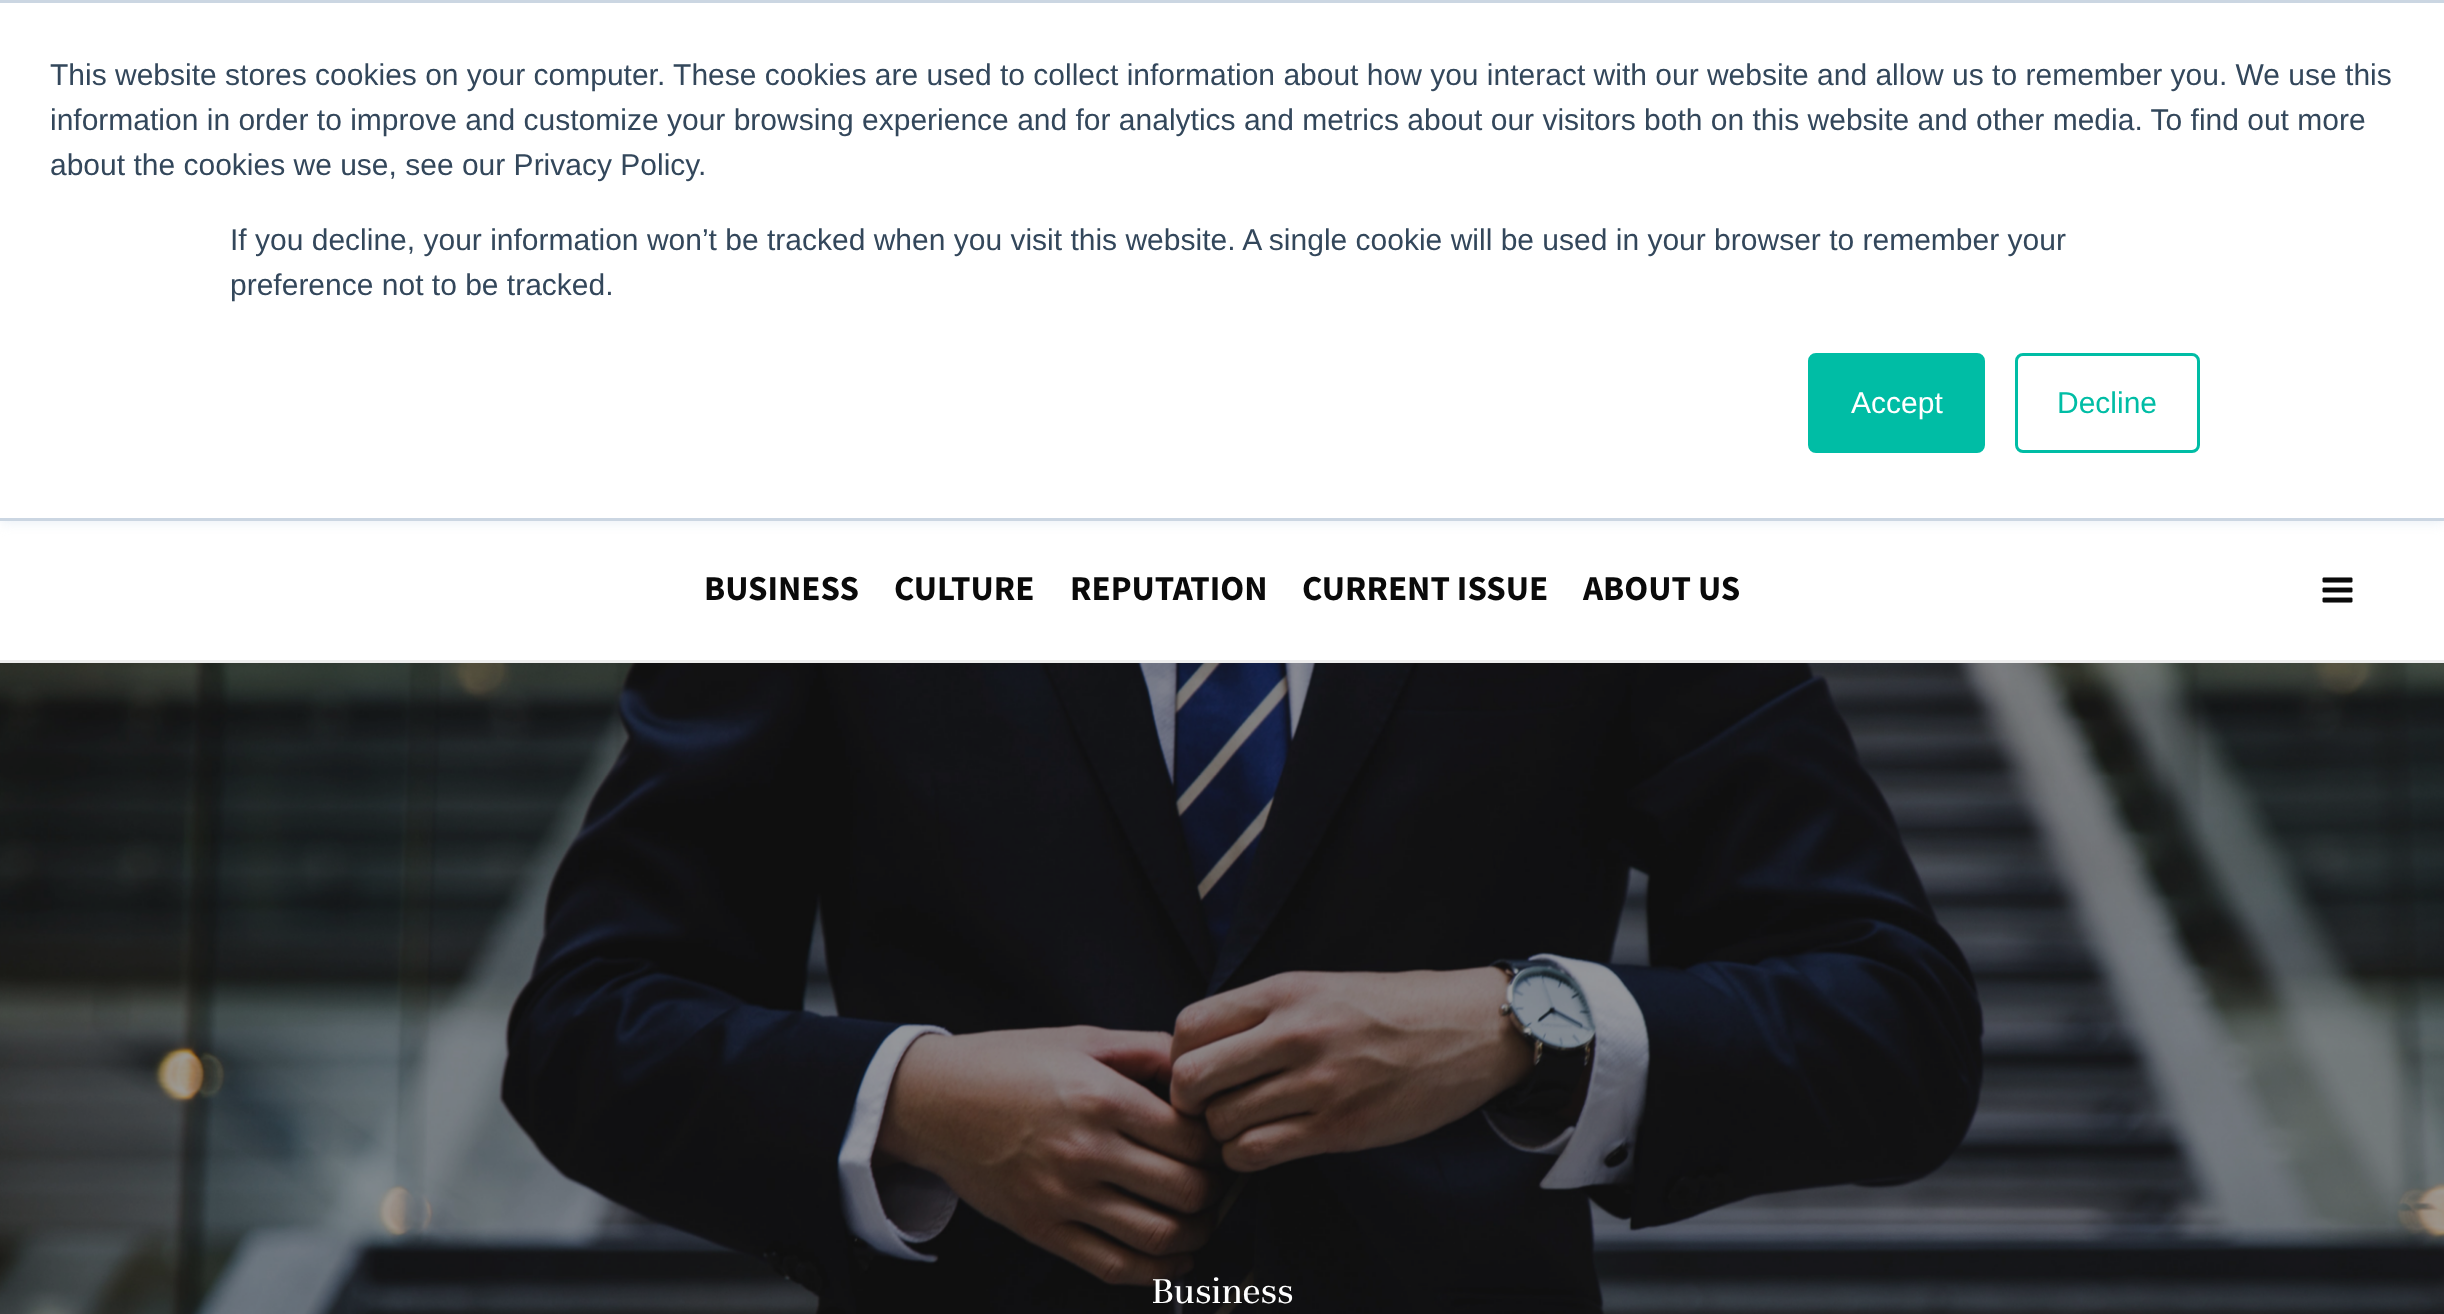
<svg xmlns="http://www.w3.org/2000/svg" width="2444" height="1314">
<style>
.a{font:30px Liberation Sans;fill:#33475b}
.b{font:30px Liberation Sans;fill:#fff}
.c{font:30px Liberation Sans;fill:#00bda5}
.d{font:bold 35px Source Sans Pro;fill:#0a0a0a}
.e{font:40px Unna;fill:#fff}
</style>
<rect width="100%" height="100%" fill="#fff"/>
<path fill="#eaf0f6" filter="blur(6px)" d="M0 3h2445v520H0z"/>
<path fill="#fff" d="M0 3h2444v515H0z"/>
<path fill="#cbd6e2" d="M0 0h2444v3H0z"/>
<path fill="#cbd6e2" d="M0 518h2444v3H0z"/>
<rect fill="#00bda5" stroke="#00bda5" stroke-width="3" x="1809.5" y="354.5" width="174" height="97" rx="6.5"/>
<rect fill="none" stroke="#00bda5" stroke-width="3" x="2016.5" y="354.5" width="182" height="97" rx="6.5"/>
<path fill="#ededed" d="M0 660h2444v3H0z"/>
<image href="1.png" x="2322" y="577" width="31" height="26"/>
<image href="2.png" x="0" y="663" width="2444" height="651"/>
<text class="a" x="50" y="85">This website stores cookies on your computer. These cookies are used to collect information about how you interact with our website and allow us to remember you. We use this</text>
<text class="a" x="50" y="130">information in order to improve and customize your browsing experience and for analytics and metrics about our visitors both on this website and other media. To find out more</text>
<text class="a" x="50" y="175">about the cookies we use, see our Privacy Policy.</text>
<text class="a" x="230" y="250">If you decline, your information won’t be tracked when you visit this website. A single cookie will be used in your browser to remember your</text>
<text class="a" x="230" y="295">preference not to be tracked.</text>
<text class="b" x="1851" y="413">Accept</text>
<text class="c" x="2057" y="413">Decline</text>
<text class="d" x="704" y="600">BUSINESS</text>
<text class="d" x="894" y="600">CULTURE</text>
<text class="d" x="1070" y="600">REPUTATION</text>
<text class="d" x="1302" y="600">CURRENT ISSUE</text>
<text class="d" x="1583" y="600">ABOUT US</text>
<text class="e" x="1151" y="1303">Business</text>
</svg>
